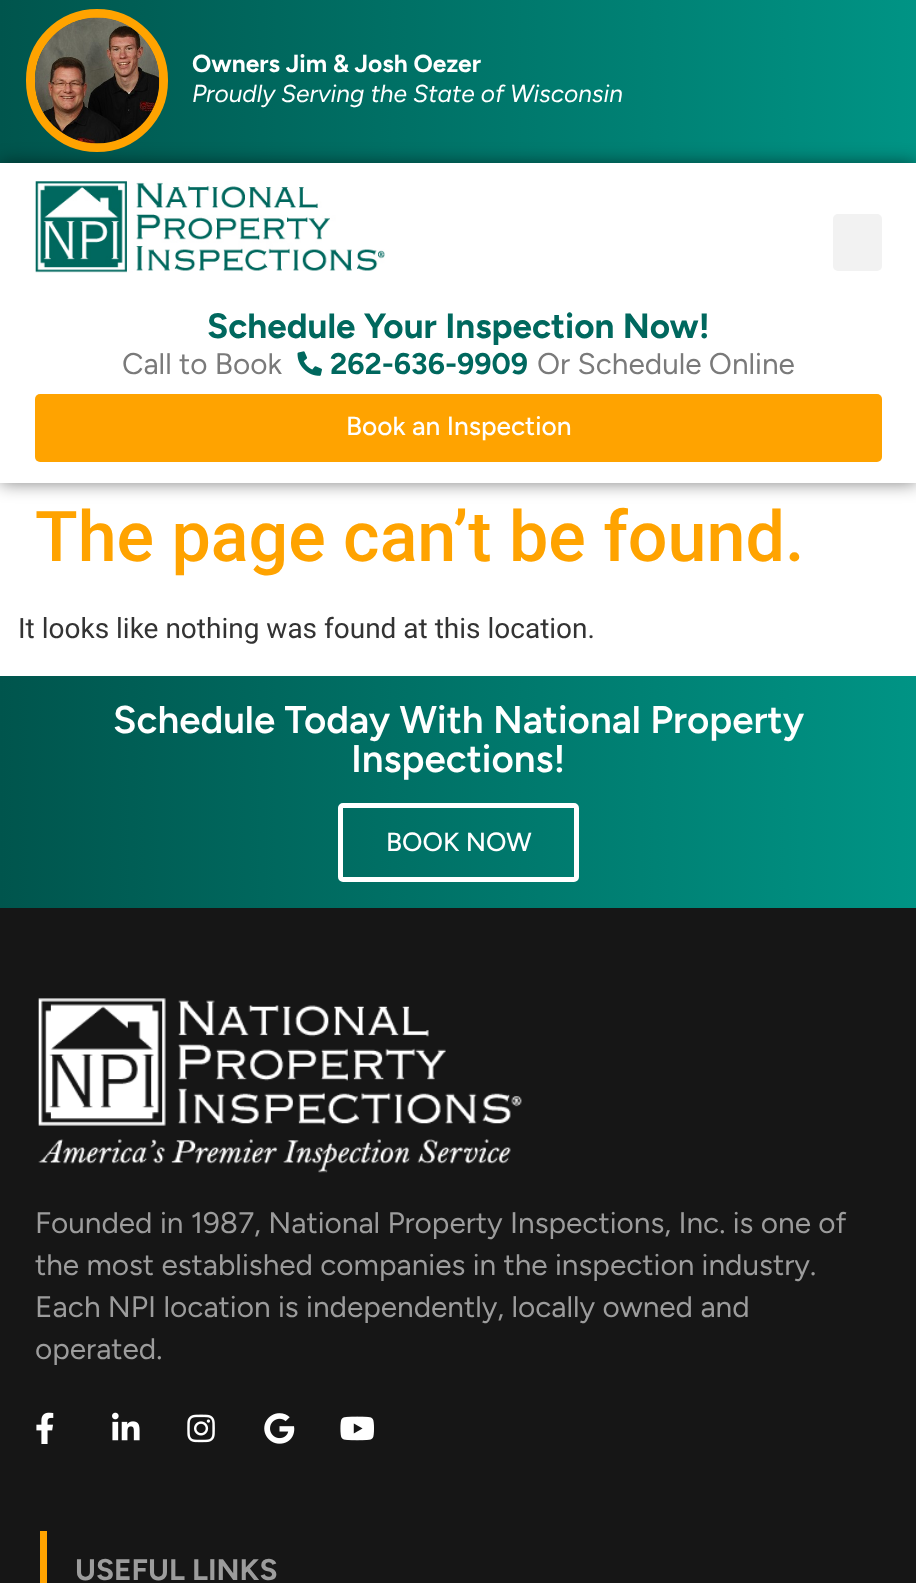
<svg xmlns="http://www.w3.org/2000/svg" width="916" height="1583">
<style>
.a{font:bold 24.5px Figtree;fill:#fff}
.b{font:italic 24.5px Figtree;fill:#fff}
.c{font:bold 35px Figtree;fill:#00685e}
.d{font:29.75px Figtree;fill:#7a7a7a}
.e{font:bold 29.75px Figtree;fill:#00685e}
.f{font:500 26.25px Figtree;fill:#fff}
.g{font:500 70px Roboto;fill:#ffa300}
.h{font:28px Roboto;fill:#333}
.i{font:600 38.5px Figtree;fill:#fff}
.j{font:29.75px Figtree;fill:#9c9c9c}
.k{font:bold 29.75px Figtree;fill:#9c9c9c}
</style>
<defs>
<linearGradient id="g1" gradientUnits="userSpaceOnUse" x1="0" y1="81" x2="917" y2="81"><stop offset="0" stop-color="#00554d"/><stop offset="1" stop-color="#009485"/></linearGradient>
<clipPath id="clip1"><path d="M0 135h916v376h-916zm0 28h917v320h-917z" clip-rule="evenodd"/></clipPath>
<linearGradient id="g2" gradientUnits="userSpaceOnUse" x1="0" y1="792" x2="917" y2="792"><stop offset="0" stop-color="#00554d"/><stop offset="1" stop-color="#009485"/></linearGradient>
</defs>
<rect width="100%" height="100%" fill="#fff"/>
<path fill="url(#g1)" d="M0 0h916v163H0z"/>
<g clip-path="url(#clip1)">
<path fill="#00000080" filter="blur(9px)" d="M0 163h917v320H0z"/>
</g>
<rect fill="none" stroke="#ffa300" stroke-width="9" x="30.5" y="13.5" width="133" height="134" rx="66.5"/>
<image href="1.png" x="35" y="17" width="125" height="127"/>
<image href="2.png" x="35" y="181" width="350" height="92"/>
<rect fill="#f2f2f2" x="833" y="214" width="49" height="57" rx="5"/>
<image href="3.png" x="297" y="351" width="25" height="25"/>
<rect fill="#ffa300" x="35" y="394" width="847" height="68" rx="5"/>
<path fill="url(#g2)" d="M0 676h916v232H0z"/>
<rect fill="none" stroke="#fff" stroke-width="5" x="340.5" y="805.5" width="236" height="74" rx="2.5"/>
<path fill="#161616" d="M0 908h916v675H0z"/>
<image href="4.png" x="38" y="998" width="484" height="175"/>
<image href="5.png" x="36" y="1412" width="18" height="32"/>
<image href="6.png" x="112" y="1412" width="28" height="29"/>
<image href="7.png" x="187" y="1414" width="28" height="29"/>
<image href="8.png" x="264" y="1413" width="31" height="31"/>
<image href="9.png" x="340" y="1416" width="34" height="25"/>
<path fill="#ffa300" d="M40 1531h7v52H40z"/>
<text class="a" x="192" y="72">Owners Jim &amp; Josh Oezer</text>
<text class="b" x="192" y="102">Proudly Serving the State of Wisconsin</text>
<text class="c" x="207" y="338">Schedule Your Inspection Now!</text>
<text class="d" x="122" y="374">Call to Book</text>
<text class="e" x="330" y="374">262-636-9909</text>
<text class="d" x="537" y="374">Or Schedule Online</text>
<text class="f" x="346" y="435">Book an Inspection</text>
<text class="g" x="35" y="561">The page can’t be found.</text>
<text class="h" x="18" y="638">It looks like nothing was found at this location.</text>
<text class="i" x="113" y="733">Schedule Today With National Property</text>
<text class="i" x="351" y="772">Inspections!</text>
<text class="f" x="386" y="851">BOOK NOW</text>
<text class="j" x="35" y="1233">Founded in 1987, National Property Inspections, Inc. is one of</text>
<text class="j" x="35" y="1275">the most established companies in the inspection industry.</text>
<text class="j" x="35" y="1317">Each NPI location is independently, locally owned and</text>
<text class="j" x="35" y="1359">operated.</text>
<text class="k" x="75" y="1580">USEFUL LINKS</text>
</svg>
